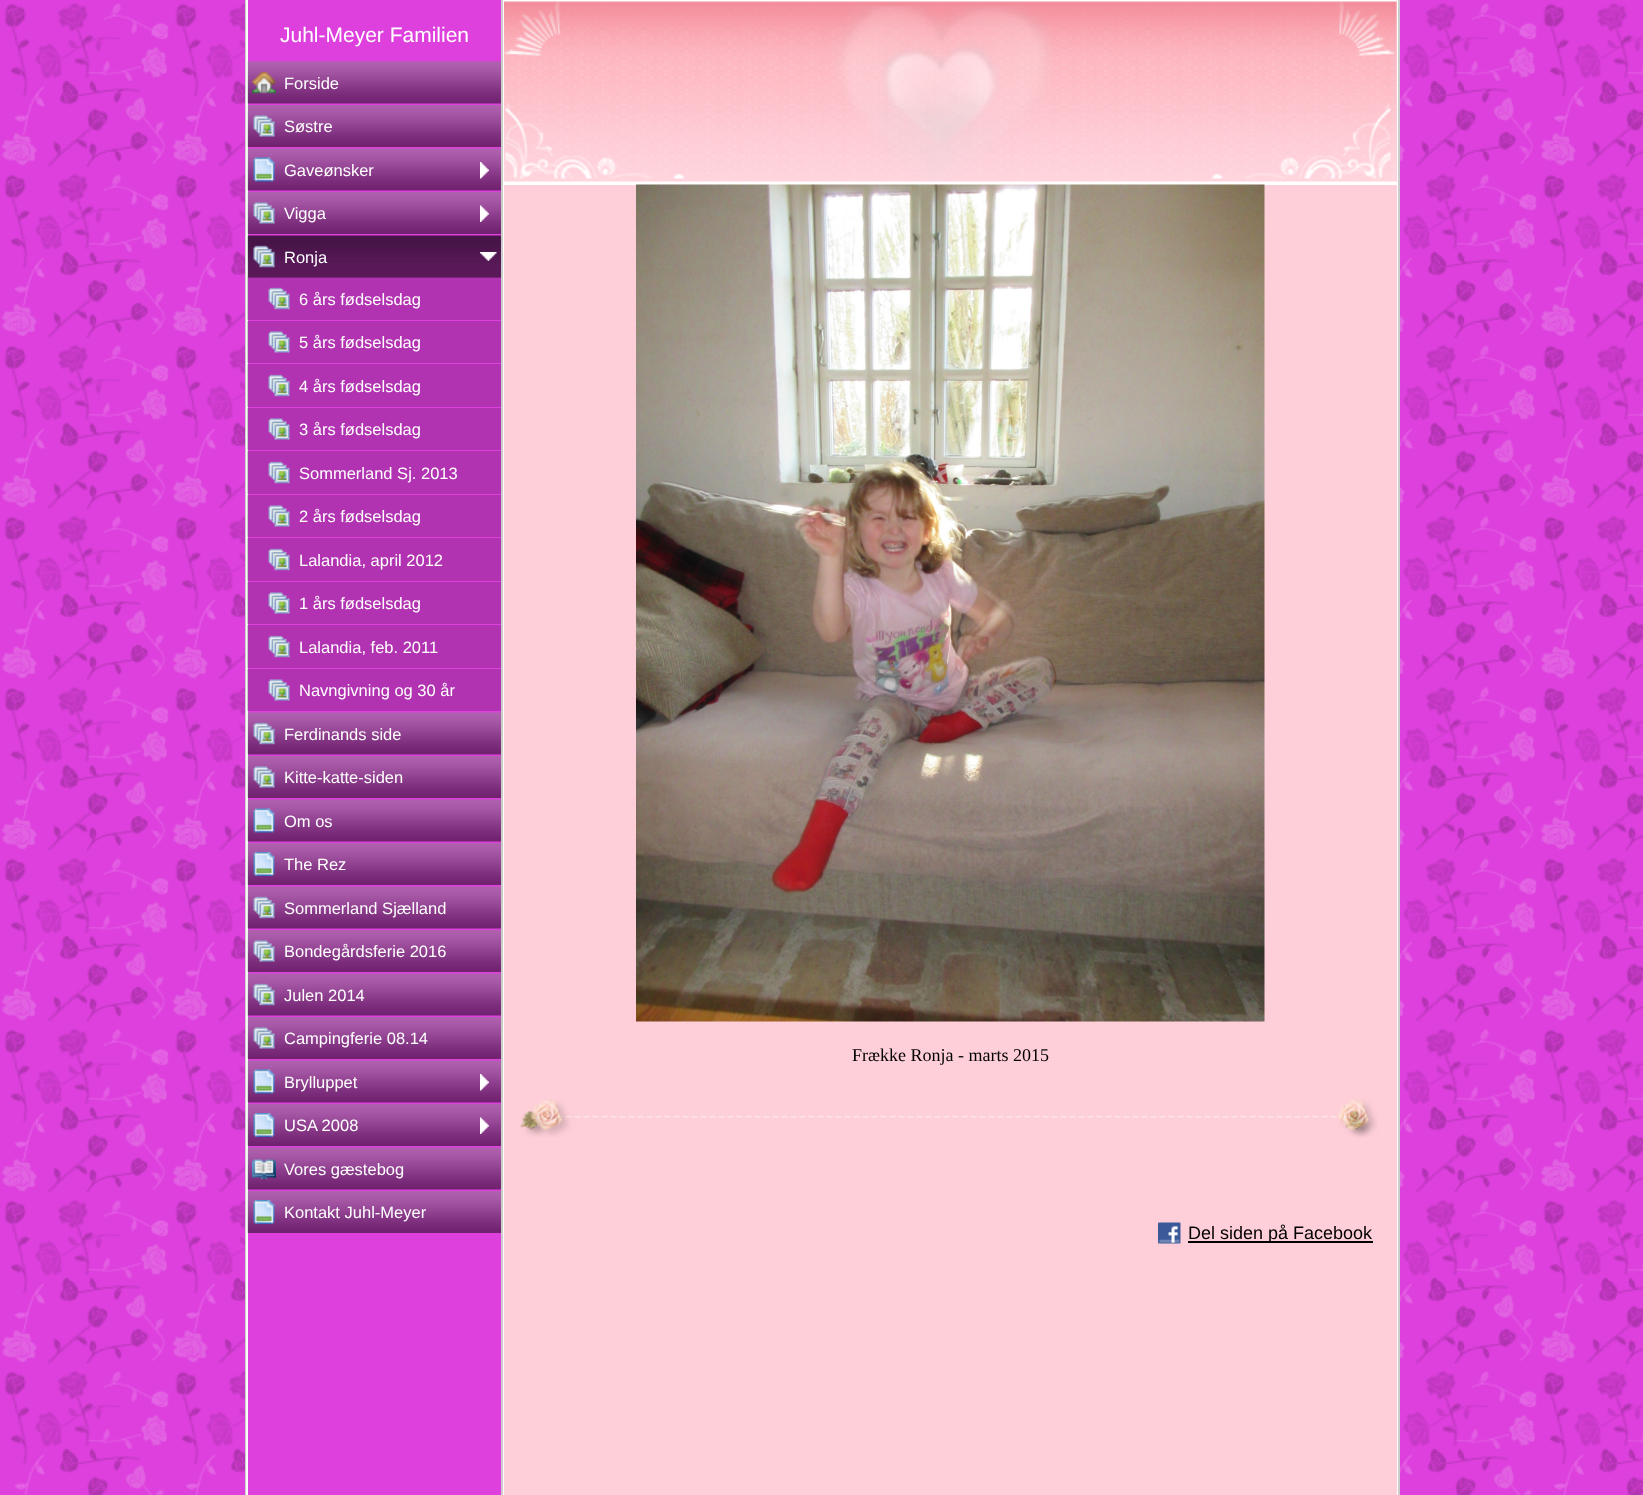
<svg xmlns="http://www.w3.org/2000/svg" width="1643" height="1495">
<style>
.a{font:21px Liberation Sans;fill:#fff}
.b{font:16.5px Liberation Sans;fill:#fff}
.c{font:18px Liberation Serif;fill:#000}
.d{font:18px Liberation Sans;fill:#000}
</style>
<rect width="100%" height="100%" fill="#de40de"/>
<image href="1.png" x="1" y="3" width="1642" height="1492"/>
<path fill="#fff" d="M503 0h895v1495H503z"/>
<path fill="#ccc" d="M245 0h1v1495H245z"/>
<path fill="#fff" d="M246 0h2v1495H246z"/>
<path fill="#de40de" d="M248 3h253v1492H248z"/>
<image href="2.png" x="247" y="61" width="254" height="43"/>
<image href="3.png" x="252" y="71" width="24" height="23"/>
<image href="4.png" x="247" y="105" width="254" height="42"/>
<image href="5.png" x="253" y="115" width="22" height="22"/>
<image href="2.png" x="247" y="148" width="254" height="43"/>
<image href="6.png" x="253" y="157" width="22" height="25"/>
<image href="7.png" x="480" y="162" width="9" height="17"/>
<image href="4.png" x="247" y="192" width="254" height="42"/>
<image href="5.png" x="253" y="202" width="22" height="22"/>
<image href="8.png" x="480" y="205" width="9" height="17"/>
<image href="9.png" x="247" y="235" width="254" height="43"/>
<image href="10.png" x="253" y="245" width="22" height="23"/>
<image href="11.png" x="480" y="252" width="17" height="9"/>
<path fill="#00000033" d="M247 277h254v43H247z"/>
<image href="12.png" x="268" y="287" width="22" height="23"/>
<path fill="#00000033" d="M247 321h254v42H247z"/>
<image href="13.png" x="268" y="331" width="22" height="22"/>
<path fill="#00000033" d="M247 364h254v43H247z"/>
<image href="12.png" x="268" y="374" width="22" height="23"/>
<path fill="#00000033" d="M247 408h254v42H247z"/>
<image href="13.png" x="268" y="418" width="22" height="22"/>
<path fill="#00000033" d="M247 451h254v43H247z"/>
<image href="12.png" x="268" y="461" width="22" height="23"/>
<path fill="#00000033" d="M247 495h254v42H247z"/>
<image href="13.png" x="268" y="505" width="22" height="22"/>
<path fill="#00000033" d="M247 538h254v43H247z"/>
<image href="12.png" x="268" y="548" width="22" height="23"/>
<path fill="#00000033" d="M247 582h254v42H247z"/>
<image href="13.png" x="268" y="592" width="22" height="22"/>
<path fill="#00000033" d="M247 625h254v43H247z"/>
<image href="12.png" x="268" y="635" width="22" height="23"/>
<path fill="#00000033" d="M247 669h254v42H247z"/>
<image href="13.png" x="268" y="679" width="22" height="22"/>
<image href="2.png" x="247" y="712" width="254" height="43"/>
<image href="14.png" x="253" y="722" width="22" height="23"/>
<image href="4.png" x="247" y="756" width="254" height="42"/>
<image href="5.png" x="253" y="766" width="22" height="22"/>
<image href="2.png" x="247" y="799" width="254" height="43"/>
<image href="6.png" x="253" y="808" width="22" height="25"/>
<image href="4.png" x="247" y="843" width="254" height="42"/>
<image href="15.png" x="253" y="852" width="22" height="24"/>
<image href="2.png" x="247" y="886" width="254" height="43"/>
<image href="14.png" x="253" y="896" width="22" height="23"/>
<image href="4.png" x="247" y="930" width="254" height="42"/>
<image href="5.png" x="253" y="940" width="22" height="22"/>
<image href="2.png" x="247" y="973" width="254" height="43"/>
<image href="14.png" x="253" y="983" width="22" height="23"/>
<image href="4.png" x="247" y="1017" width="254" height="42"/>
<image href="5.png" x="253" y="1027" width="22" height="22"/>
<image href="2.png" x="247" y="1060" width="254" height="43"/>
<image href="6.png" x="253" y="1069" width="22" height="25"/>
<image href="7.png" x="480" y="1074" width="9" height="17"/>
<image href="4.png" x="247" y="1104" width="254" height="42"/>
<image href="15.png" x="253" y="1113" width="22" height="24"/>
<image href="8.png" x="480" y="1117" width="9" height="17"/>
<image href="2.png" x="247" y="1147" width="254" height="43"/>
<image href="16.png" x="252" y="1159" width="24" height="21"/>
<image href="4.png" x="247" y="1191" width="254" height="42"/>
<image href="15.png" x="253" y="1200" width="22" height="24"/>
<path fill="#ccc" d="M501 0h2v1495H501z"/>
<path fill="#fecfd9" d="M504 0h893v1495H504z"/>
<image href="17.png" x="504" y="0" width="893" height="183"/>
<path fill="#fff" d="M504 183h893v2H504z"/>
<image href="18.png" x="636" y="184" width="629" height="838"/>
<image href="19.png" x="520" y="1099" width="858" height="39"/>
<image href="20.png" x="1158" y="1222" width="23" height="22"/>
<path fill="#000" d="M1188 1241h185v2H1188z"/>
<path fill="#ccc" d="M1398 0h2v1495H1398z"/>
<text class="a" x="280" y="42">Juhl-Meyer Familien</text>
<text class="b" x="284" y="89">Forside</text>
<text class="b" x="284" y="132">Søstre</text>
<text class="b" x="284" y="176">Gaveønsker</text>
<text class="b" x="284" y="219">Vigga</text>
<text class="b" x="284" y="263">Ronja</text>
<text class="b" x="299" y="305">6 års fødselsdag</text>
<text class="b" x="299" y="348">5 års fødselsdag</text>
<text class="b" x="299" y="392">4 års fødselsdag</text>
<text class="b" x="299" y="435">3 års fødselsdag</text>
<text class="b" x="299" y="479">Sommerland Sj. 2013</text>
<text class="b" x="299" y="522">2 års fødselsdag</text>
<text class="b" x="299" y="566">Lalandia, april 2012</text>
<text class="b" x="299" y="609">1 års fødselsdag</text>
<text class="b" x="299" y="653">Lalandia, feb. 2011</text>
<text class="b" x="299" y="696">Navngivning og 30 år</text>
<text class="b" x="284" y="740">Ferdinands side</text>
<text class="b" x="284" y="783">Kitte-katte-siden</text>
<text class="b" x="284" y="827">Om os</text>
<text class="b" x="284" y="870">The Rez</text>
<text class="b" x="284" y="914">Sommerland Sjælland</text>
<text class="b" x="284" y="957">Bondegårdsferie 2016</text>
<text class="b" x="284" y="1001">Julen 2014</text>
<text class="b" x="284" y="1044">Campingferie 08.14</text>
<text class="b" x="284" y="1088">Brylluppet</text>
<text class="b" x="284" y="1131">USA 2008</text>
<text class="b" x="284" y="1175">Vores gæstebog</text>
<text class="b" x="284" y="1218">Kontakt Juhl-Meyer</text>
<text class="c" x="852" y="1061">Frække Ronja - marts 2015</text>
<text class="d" x="1188" y="1239">Del siden på Facebook</text>
</svg>
